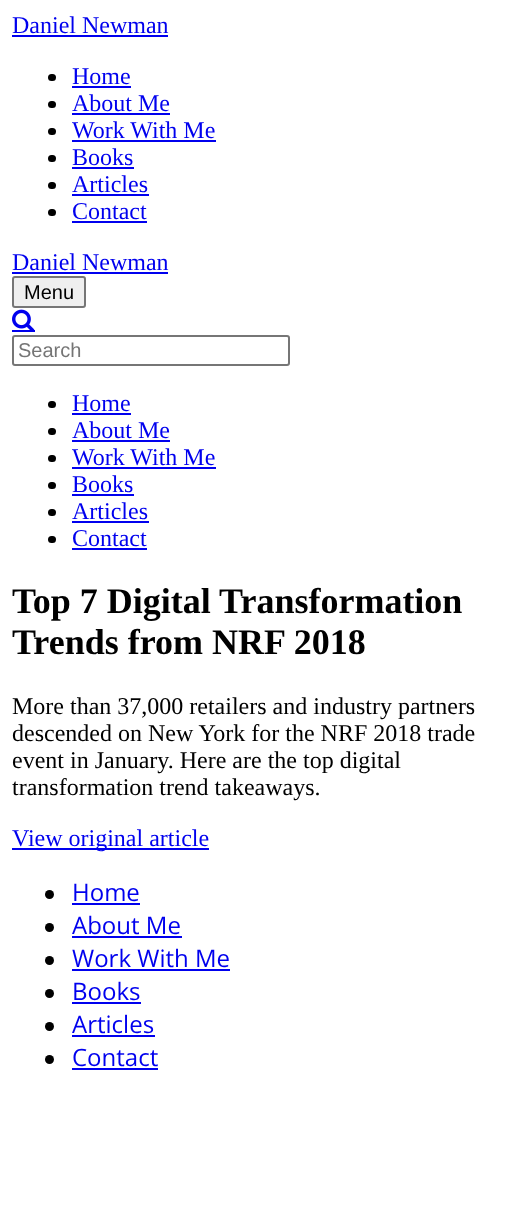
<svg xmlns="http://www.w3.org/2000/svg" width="507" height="1218">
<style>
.a{font:24px Liberation Serif;fill:#00e}
.b{font:20px Liberation Sans;fill:#000}
.c{font:20px Liberation Sans;fill:#757575}
.d{font:bold 36px Liberation Serif;fill:#000}
.e{font:24px Liberation Serif;fill:#000}
.f{font:24px Open Sans;fill:#00e}
</style>
<rect width="100%" height="100%" fill="#fff"/>
<path fill="#00e" d="M12 35h156v2H12z"/>
<rect fill="#000" x="48" y="74" width="8" height="7" rx="3.5"/>
<path fill="#00e" d="M72 86h59v2H72z"/>
<rect fill="#000" x="48" y="101" width="8" height="7" rx="3.5"/>
<path fill="#00e" d="M72 113h98v2H72z"/>
<rect fill="#000" x="48" y="128" width="8" height="7" rx="3.5"/>
<path fill="#00e" d="M72 140h144v2H72z"/>
<rect fill="#000" x="48" y="155" width="8" height="7" rx="3.5"/>
<path fill="#00e" d="M72 167h62v2H72z"/>
<rect fill="#000" x="48" y="182" width="8" height="7" rx="3.5"/>
<path fill="#00e" d="M72 194h77v2H72z"/>
<rect fill="#000" x="48" y="209" width="8" height="7" rx="3.5"/>
<path fill="#00e" d="M72 221h75v2H72z"/>
<path fill="#00e" d="M12 272h156v2H12z"/>
<rect fill="#efefef" stroke="#767676" stroke-width="2" x="13" y="277" width="72" height="30" rx="2"/>
<image href="1.png" x="12" y="309" width="23" height="21"/>
<path fill="#00e" d="M12 330h23v2H12z"/>
<rect fill="none" stroke="#767676" stroke-width="2" x="13" y="336" width="276" height="29" rx="2"/>
<rect fill="#000" x="48" y="401" width="8" height="7" rx="3.5"/>
<path fill="#00e" d="M72 413h59v2H72z"/>
<rect fill="#000" x="48" y="428" width="8" height="7" rx="3.5"/>
<path fill="#00e" d="M72 440h98v2H72z"/>
<rect fill="#000" x="48" y="455" width="8" height="7" rx="3.5"/>
<path fill="#00e" d="M72 467h144v2H72z"/>
<rect fill="#000" x="48" y="482" width="8" height="7" rx="3.5"/>
<path fill="#00e" d="M72 494h62v2H72z"/>
<rect fill="#000" x="48" y="509" width="8" height="7" rx="3.5"/>
<path fill="#00e" d="M72 521h77v2H72z"/>
<rect fill="#000" x="48" y="536" width="8" height="7" rx="3.5"/>
<path fill="#00e" d="M72 548h75v2H72z"/>
<path fill="#00e" d="M12 848h197v2H12z"/>
<circle fill="#000" cx="49.5" cy="894.5" r="4.5"/>
<path fill="#00e" d="M72 903h68v2H72z"/>
<circle fill="#000" cx="49.5" cy="927.5" r="4.5"/>
<path fill="#00e" d="M72 936h110v2H72z"/>
<circle fill="#000" cx="49.5" cy="960.5" r="4.5"/>
<path fill="#00e" d="M72 969h158v2H72z"/>
<circle fill="#000" cx="49.5" cy="993.5" r="4.5"/>
<path fill="#00e" d="M72 1002h69v2H72z"/>
<circle fill="#000" cx="49.5" cy="1026.5" r="4.5"/>
<path fill="#00e" d="M72 1035h83v2H72z"/>
<circle fill="#000" cx="49.5" cy="1059.5" r="4.5"/>
<path fill="#00e" d="M72 1068h86v2H72z"/>
<text class="a" x="12" y="33">Daniel Newman</text>
<text class="a" x="72" y="84">Home</text>
<text class="a" x="72" y="111">About Me</text>
<text class="a" x="72" y="138">Work With Me</text>
<text class="a" x="72" y="165">Books</text>
<text class="a" x="72" y="192">Articles</text>
<text class="a" x="72" y="219">Contact</text>
<text class="a" x="12" y="270">Daniel Newman</text>
<text class="b" x="24" y="299">Menu</text>
<text class="c" x="18" y="357">Search</text>
<text class="a" x="72" y="411">Home</text>
<text class="a" x="72" y="438">About Me</text>
<text class="a" x="72" y="465">Work With Me</text>
<text class="a" x="72" y="492">Books</text>
<text class="a" x="72" y="519">Articles</text>
<text class="a" x="72" y="546">Contact</text>
<text class="d" x="12" y="613">Top 7 Digital Transformation</text>
<text class="d" x="12" y="654">Trends from NRF 2018</text>
<text class="e" x="12" y="714">More than 37,000 retailers and industry partners</text>
<text class="e" x="12" y="741">descended on New York for the NRF 2018 trade</text>
<text class="e" x="12" y="768">event in January. Here are the top digital</text>
<text class="e" x="12" y="795">transformation trend takeaways.</text>
<text class="a" x="12" y="846">View original article</text>
<text class="f" x="72" y="901">Home</text>
<text class="f" x="72" y="934">About Me</text>
<text class="f" x="72" y="967">Work With Me</text>
<text class="f" x="72" y="1000">Books</text>
<text class="f" x="72" y="1033">Articles</text>
<text class="f" x="72" y="1066">Contact</text>
</svg>
